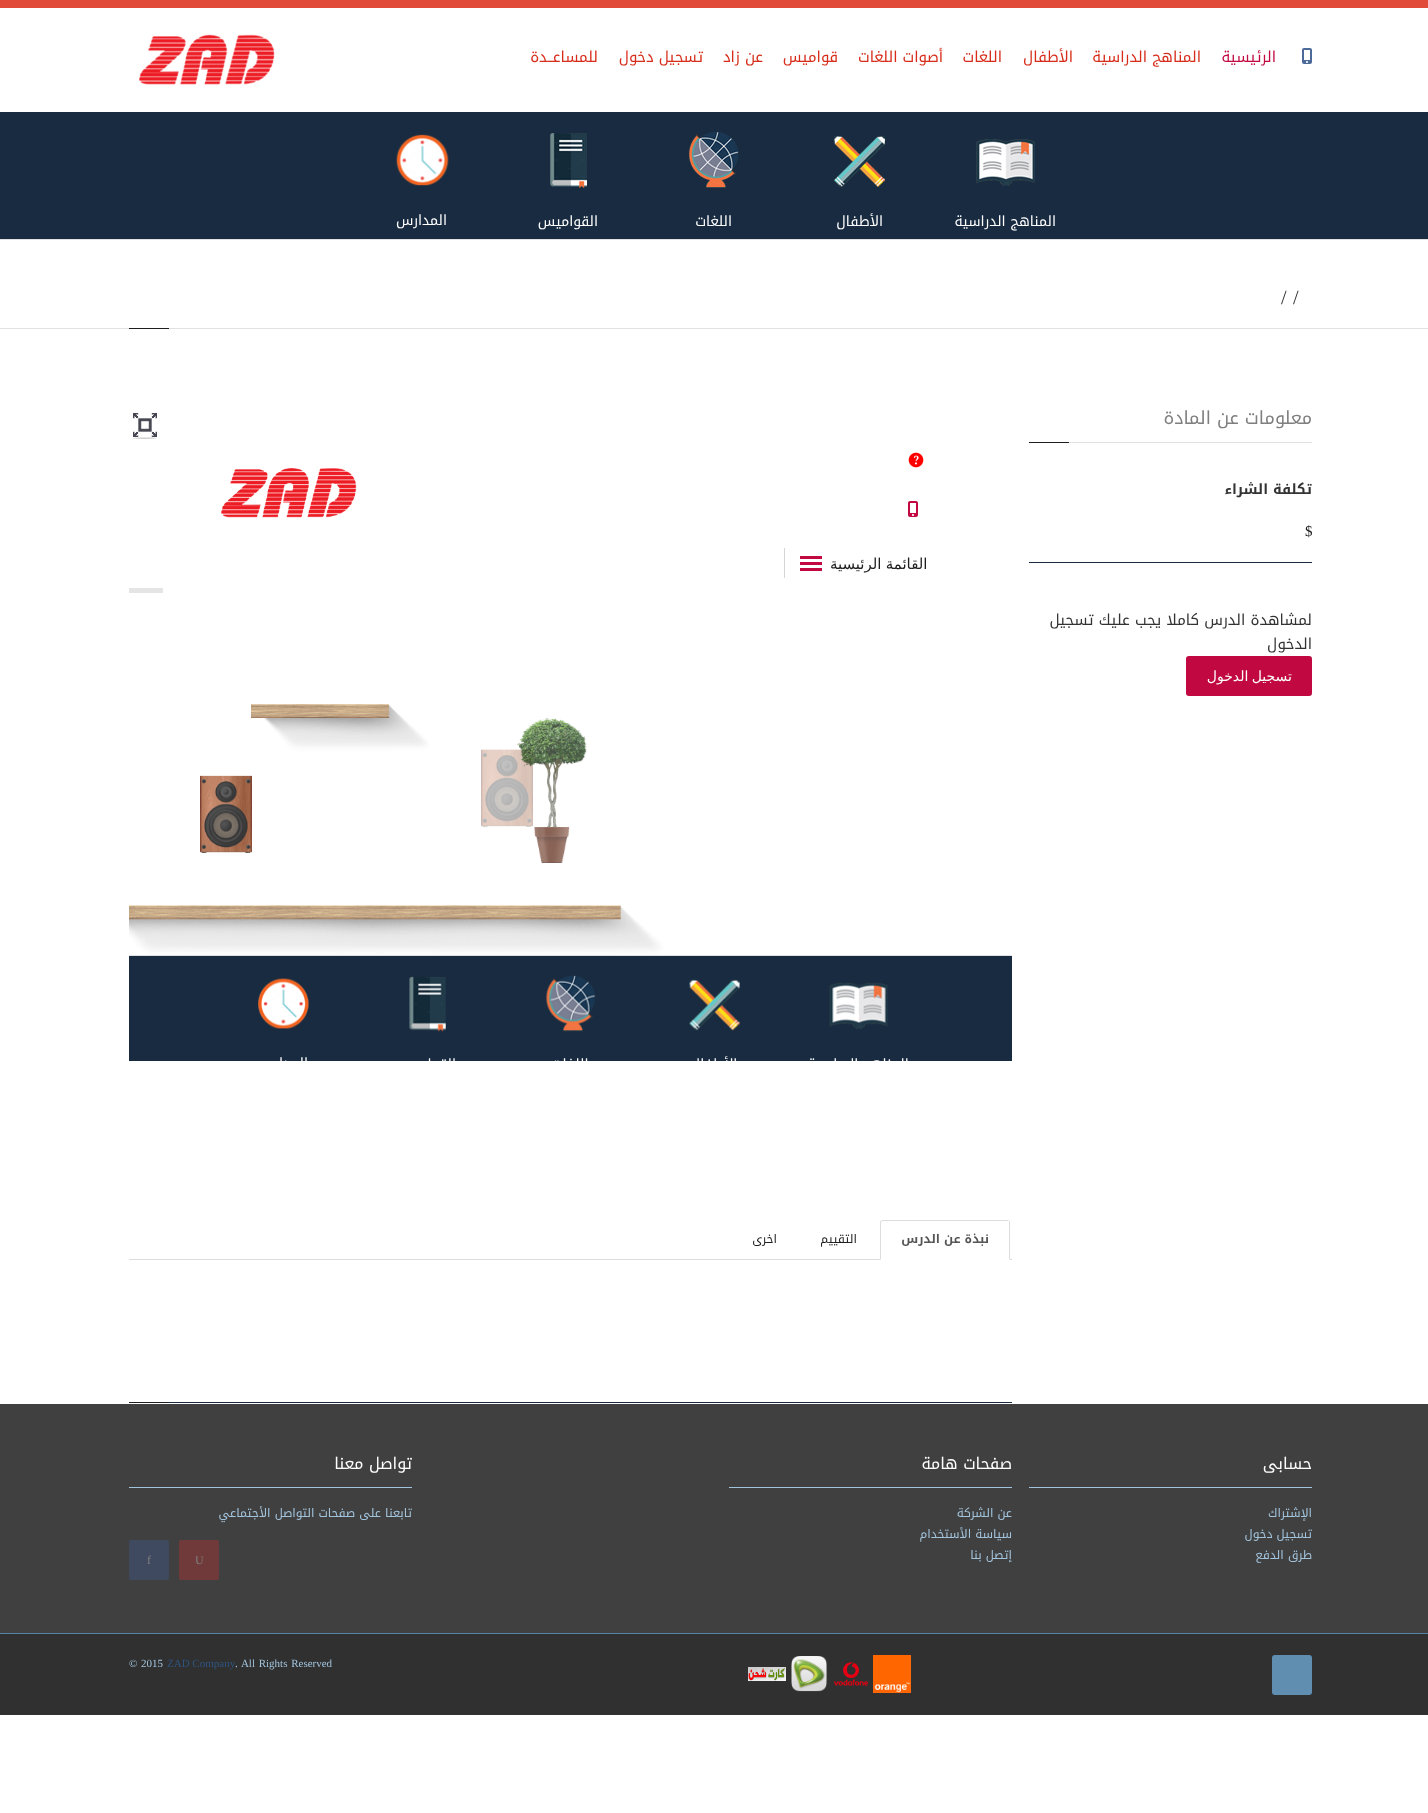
<svg xmlns="http://www.w3.org/2000/svg" width="1428" height="1813">
<style>
.a{font:15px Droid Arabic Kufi;direction:rtl;fill:#c10841}
.b{font:15px Droid Arabic Kufi;direction:rtl;fill:#d72c19}
.c{font:14px Droid Arabic Kufi;direction:rtl;fill:#fff}
.d{font:20px Liberation Serif;fill:#333}
.e{font:18px Droid Arabic Kufi;direction:rtl;fill:#7f7f7f}
.f{font:bold 14px Droid Arabic Kufi;direction:rtl;fill:#333}
.g{font:15px Liberation Serif;fill:#1e1e1e}
.h{font:15px Droid Arabic Kufi;direction:rtl;fill:#333}
.i{font:14px DejaVu Sans;direction:rtl;fill:#fff}
.j{font:bold 12px Droid Arabic Kufi;direction:rtl;fill:#555}
.k{font:12px Droid Arabic Kufi;direction:rtl;fill:#1e1e1e}
.l{font:16px Droid Arabic Kufi;direction:rtl;fill:#fff}
.m{font:12px Droid Arabic Kufi;direction:rtl;fill:#a2c4dd}
.n{font:12px Liberation Serif;fill:#7f7f7f}
.o{font:11px Liberation Serif;fill:#a2c4dd}
.p{font:11px Liberation Serif;fill:#2e5481}
</style>
<rect width="100%" height="100%" fill="#fff"/>
<path fill="#e14938" d="M0 0h1428v8H0z"/>
<image href="1.png" x="1302" y="48" width="10" height="16"/>
<image href="2.png" x="139" y="34" width="136" height="51"/>
<path fill="#192b40" d="M0 112h1428v127H0z"/>
<image href="3.png" x="976" y="139" width="59" height="47"/>
<image href="4.png" x="834" y="136" width="51" height="51"/>
<image href="5.png" x="689" y="132" width="50" height="56"/>
<image href="6.png" x="550" y="133" width="37" height="55"/>
<image href="7.png" x="396" y="134" width="53" height="52"/>
<path fill="#e1e1e1" d="M0 239h1428v1H0z"/>
<path fill="#e1e1e1" d="M0 328h1428v1H0z"/>
<path fill="#1e1e1e" d="M129 328h40v1H129z"/>
<path fill="#e1e1e1" d="M1069 442h243v1H1069z"/>
<path fill="#1e1e1e" d="M1029 442h40v1H1029z"/>
<path fill="#192b40" d="M1029 562h283v1H1029z"/>
<rect fill="#c10841" x="1186" y="656" width="126" height="40" rx="3"/>
<image href="8.png" x="133" y="413" width="24" height="26"/>
<image href="9.png" x="129" y="452" width="883" height="609"/>
<path fill="#ddd" d="M129 1259h883v1H129z"/>
<path fill="#fff" d="M882 1220h126c1 0 2 1 2 2v38h-130v-38c0-1 1-2 2-2z"/>
<path fill="#ddd" d="M882 1220l-1 1l1 1v-1h127l-1-1z"/>
<path fill="#ddd" d="M1010 1260v-38l-.5-1.5l-.5 .5v38z"/>
<path fill="#ddd" d="M880 1260l1-1v-37l.5-.5l-1-1l-.5 1.5z"/>
<path fill="#192b40" d="M169 1402h843v1H169z"/>
<path fill="#1e1e1e" d="M129 1402h40v1H129z"/>
<path fill="#414040" d="M0 1404h1428v229H0z"/>
<path fill="#a2c4dd" d="M1029 1487h283v1H1029z"/>
<path fill="#a2c4dd" d="M729 1487h283v1H729z"/>
<path fill="#a2c4dd" d="M129 1487h283v1H129z"/>
<rect fill="#6f3a39" x="179" y="1540" width="40" height="40" rx="2"/>
<rect fill="#3f495f" x="129" y="1540" width="40" height="40" rx="2"/>
<path fill="#303030" d="M0 1634h1428v81H0z"/>
<path fill="#5584a7" d="M0 1633h1428v1H0z"/>
<rect fill="#608eb0" x="1272" y="1655" width="40" height="40" rx="3"/>
<image href="10.png" x="873" y="1655" width="38" height="38"/>
<image href="11.png" x="834" y="1662" width="35" height="24"/>
<image href="12.png" x="791" y="1656" width="37" height="36"/>
<image href="13.png" x="748" y="1667" width="38" height="14"/>
<text class="a" x="1276" y="62">الرئيسية</text>
<text class="b" x="1201" y="62">المناهج الدراسية</text>
<text class="b" x="1073" y="62">الأطفال</text>
<text class="b" x="1002" y="62">اللغات</text>
<text class="b" x="943" y="62">أصوات اللغات</text>
<text class="b" x="838" y="62">قواميس</text>
<text class="b" x="763" y="62">عن زاد</text>
<text class="b" x="703" y="62">تسجيل دخول</text>
<text class="b" x="598" y="62">للمساعــدة</text>
<text class="c" x="1056" y="226">المناهج الدراسية</text>
<text class="c" x="883" y="226">الأطفال</text>
<text class="c" x="732" y="226">اللغات</text>
<text class="c" x="598" y="226">القواميس</text>
<text class="c" x="447" y="225">المدارس</text>
<text class="d" x="1293" y="304">/</text>
<text class="d" x="1281" y="304">/</text>
<text class="e" x="1312" y="424">معلومات عن المادة</text>
<text class="f" x="1312" y="494">تكلفة الشراء</text>
<text class="g" x="1305" y="536">$</text>
<text class="h" x="1312" y="625">لمشاهدة الدرس كاملا يجب عليك تسجيل</text>
<text class="h" x="1312" y="649">الدخول</text>
<text class="i" x="1292" y="681" word-spacing="-1">تسجيل الدخول</text>
<text class="j" x="989" y="1243">نبذة عن الدرس</text>
<text class="k" x="857" y="1243">التقييم</text>
<text class="k" x="777" y="1243">اخرى</text>
<text class="l" x="1312" y="1469">حسابى</text>
<text class="m" x="1312" y="1517">الإشتراك</text>
<text class="m" x="1312" y="1538">تسجيل دخول</text>
<text class="m" x="1312" y="1559">طرق الدفع</text>
<text class="l" x="1012" y="1469">صفحات هامة</text>
<text class="m" x="1012" y="1517">عن الشركة</text>
<text class="m" x="1012" y="1538">سياسة الأستخدام</text>
<text class="m" x="1012" y="1559">إتصل بنا</text>
<text class="l" x="412" y="1469">تواصل معنا</text>
<text class="m" x="412" y="1517">تابعنا على صفحات التواصل الأجتماعي</text>
<text class="n" x="195" y="1564">U</text>
<text class="n" x="147" y="1564">f</text>
<text class="o" x="235" y="1667" word-spacing="1">. All Rights Reserved</text>
<text class="p" x="167" y="1667">ZAD Company</text>
<text class="o" x="129" y="1667" word-spacing="1">© 2015</text>
</svg>
